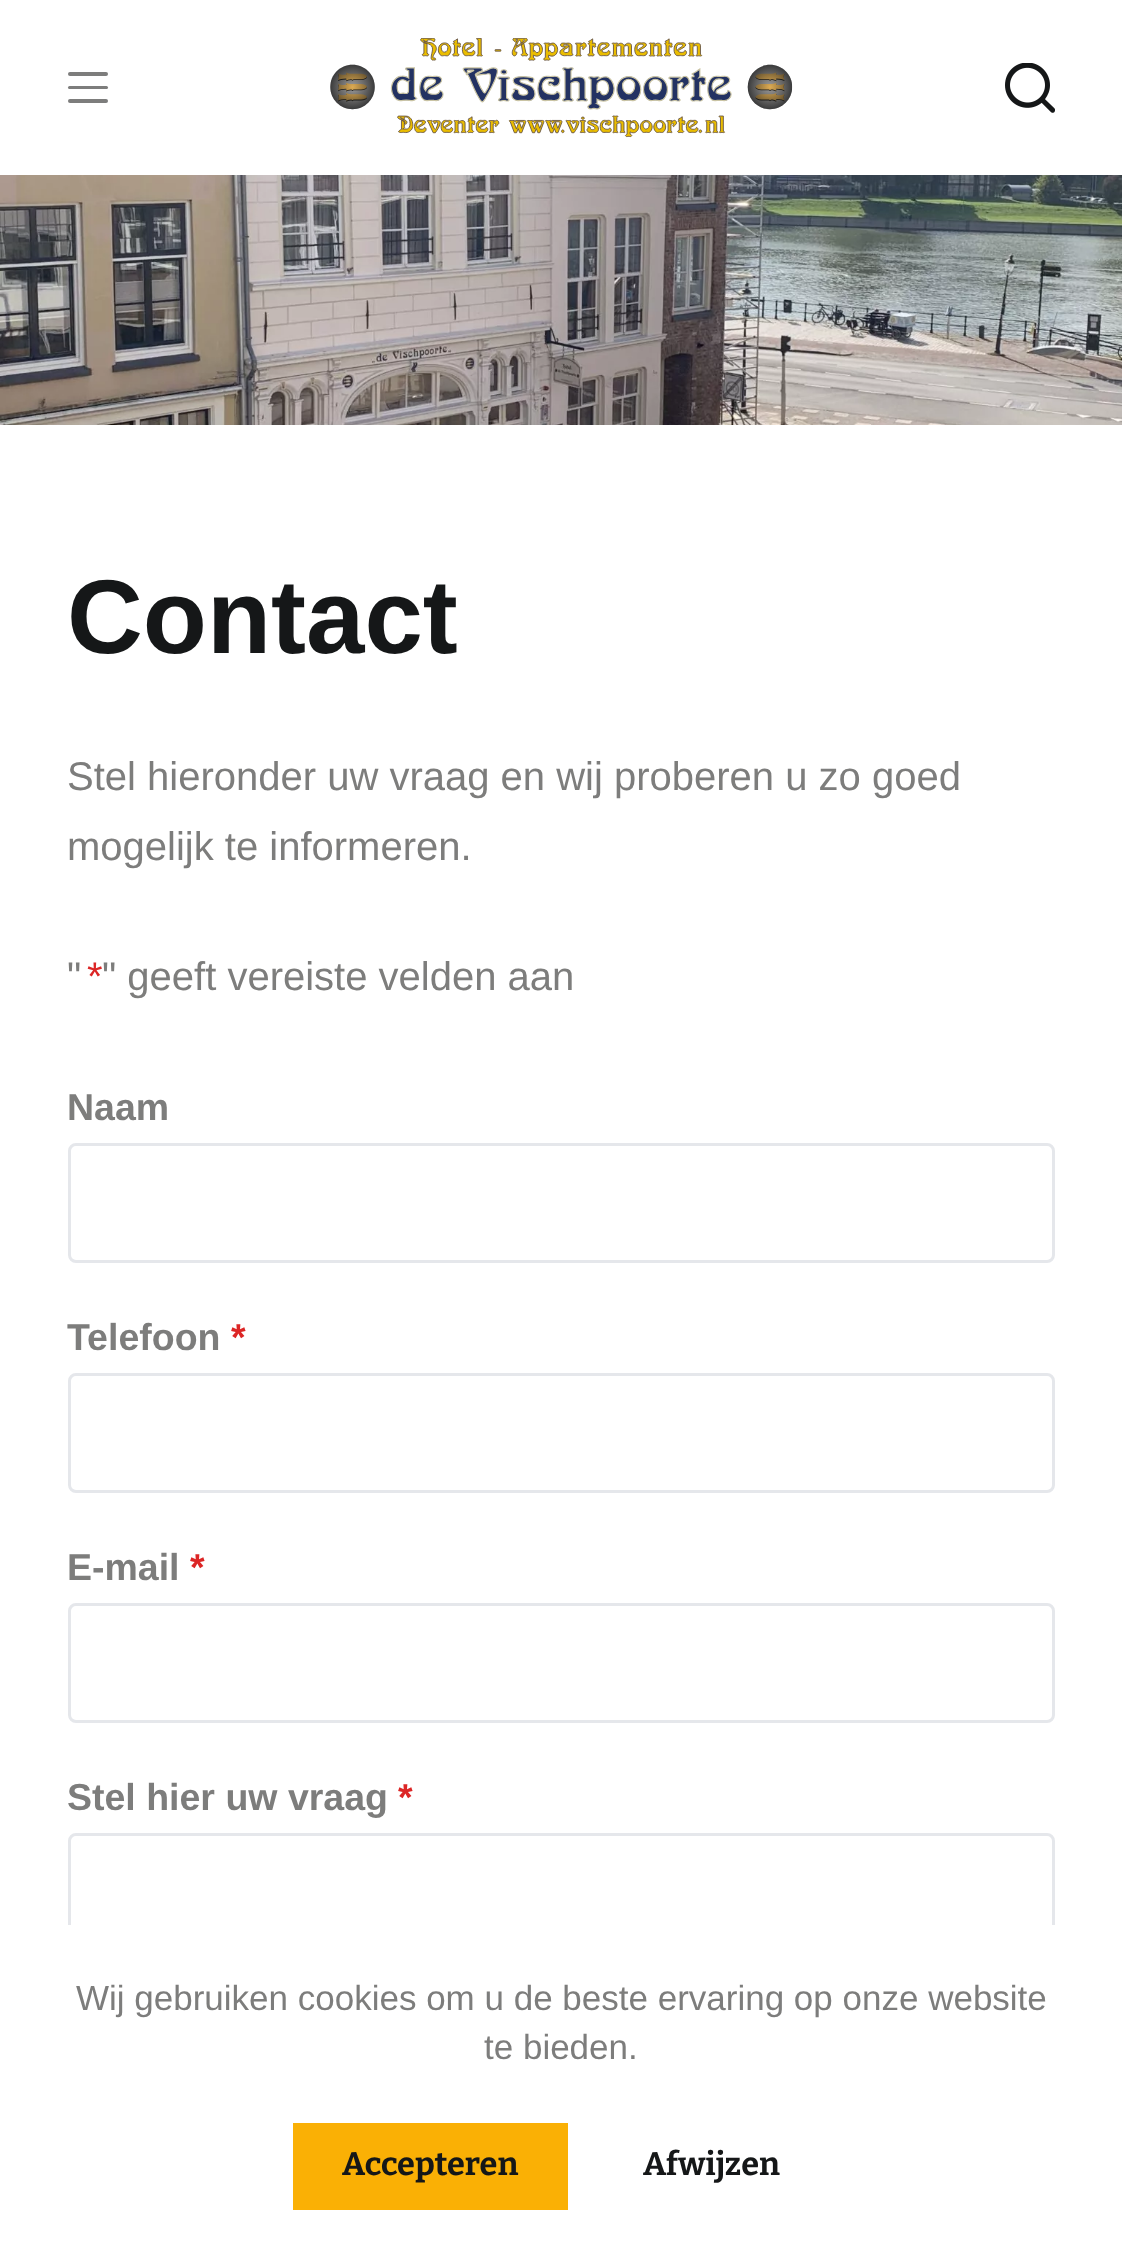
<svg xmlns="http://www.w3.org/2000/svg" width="1122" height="2258">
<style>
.a{font:bold 105px Liberation Sans;fill:#151718}
.b{font:40px Liberation Sans;fill:#7d7d7c}
.c{font:40px Liberation Sans;fill:#dc2626}
.d{font:bold 37.5px Liberation Sans;fill:#7d7d7c}
.e{font:bold 37.5px Liberation Sans;fill:#dc2626}
.f{font:35px Liberation Sans;fill:#7d7d7c}
.g{font:bold 32.5px Bitter;fill:#151718}
</style>
<rect width="100%" height="100%" fill="#fff"/>
<rect fill="#7d7d7c" x="68" y="72" width="40" height="4" rx="2"/>
<rect fill="#7d7d7c" x="68" y="86" width="40" height="3" rx="1.5"/>
<rect fill="#7d7d7c" x="68" y="99" width="40" height="4" rx="2"/>
<image href="1.png" x="330" y="38" width="463" height="100"/>
<image href="2.png" x="1005" y="63" width="50" height="50"/>
<image href="3.png" x="0" y="175" width="1122" height="250"/>
<rect fill="none" stroke="#e5e7eb" stroke-width="3" x="69.5" y="1144.5" width="984" height="117" rx="6.5"/>
<rect fill="none" stroke="#e5e7eb" stroke-width="3" x="69.5" y="1374.5" width="984" height="117" rx="6.5"/>
<rect fill="none" stroke="#e5e7eb" stroke-width="3" x="69.5" y="1604.5" width="984" height="117" rx="6.5"/>
<rect fill="none" stroke="#e5e7eb" stroke-width="3" x="69.5" y="1834.5" width="984" height="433" rx="6.5"/>
<path fill="#fff" d="M68 1925h987v333H68z"/>
<path fill="#fab005" d="M293 2123h275v87H293z"/>
<text class="a" x="67" y="653">Contact</text>
<text class="b" x="67" y="790">Stel hieronder uw vraag en wij proberen u zo goed</text>
<text class="b" x="67" y="860">mogelijk te informeren.</text>
<text class="b" x="67" y="990">"</text>
<text class="c" x="87" y="990">*</text>
<text class="b" x="102" y="990">" geeft vereiste velden aan</text>
<text class="d" x="67" y="1120">Naam</text>
<text class="d" x="67" y="1350">Telefoon</text>
<text class="e" x="231" y="1350">*</text>
<text class="d" x="67" y="1580">E-mail</text>
<text class="e" x="190" y="1580">*</text>
<text class="d" x="67" y="1810">Stel hier uw vraag</text>
<text class="e" x="398" y="1810">*</text>
<text class="f" x="76" y="2010">Wij gebruiken cookies om u de beste ervaring op onze website</text>
<text class="f" x="484" y="2059">te bieden.</text>
<text class="g" x="342" y="2175">Accepteren</text>
<text class="g" x="643" y="2175">Afwijzen</text>
</svg>
